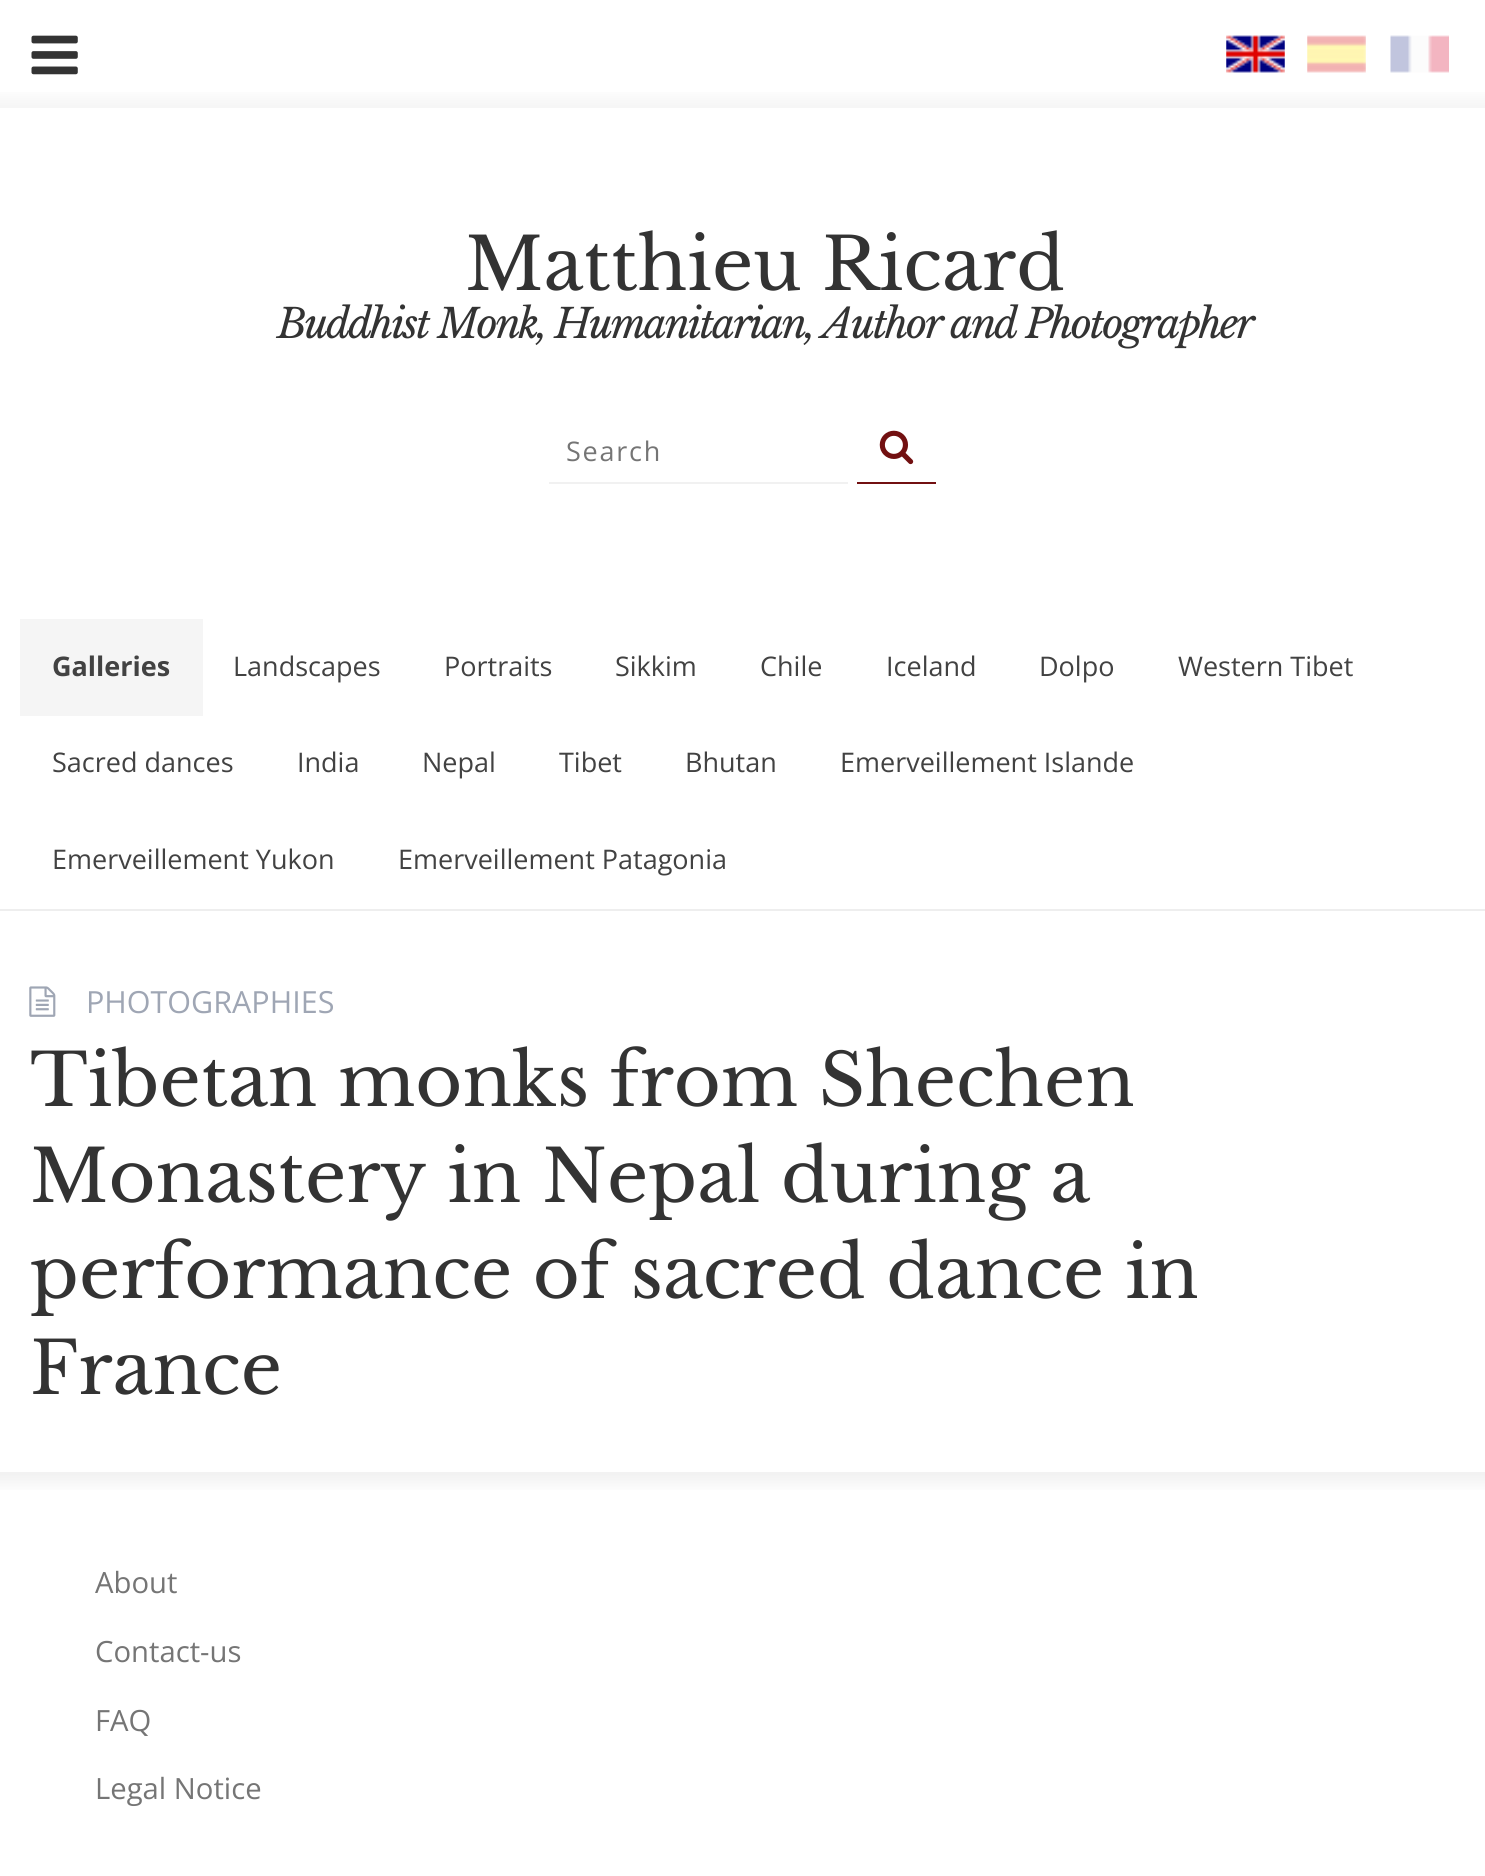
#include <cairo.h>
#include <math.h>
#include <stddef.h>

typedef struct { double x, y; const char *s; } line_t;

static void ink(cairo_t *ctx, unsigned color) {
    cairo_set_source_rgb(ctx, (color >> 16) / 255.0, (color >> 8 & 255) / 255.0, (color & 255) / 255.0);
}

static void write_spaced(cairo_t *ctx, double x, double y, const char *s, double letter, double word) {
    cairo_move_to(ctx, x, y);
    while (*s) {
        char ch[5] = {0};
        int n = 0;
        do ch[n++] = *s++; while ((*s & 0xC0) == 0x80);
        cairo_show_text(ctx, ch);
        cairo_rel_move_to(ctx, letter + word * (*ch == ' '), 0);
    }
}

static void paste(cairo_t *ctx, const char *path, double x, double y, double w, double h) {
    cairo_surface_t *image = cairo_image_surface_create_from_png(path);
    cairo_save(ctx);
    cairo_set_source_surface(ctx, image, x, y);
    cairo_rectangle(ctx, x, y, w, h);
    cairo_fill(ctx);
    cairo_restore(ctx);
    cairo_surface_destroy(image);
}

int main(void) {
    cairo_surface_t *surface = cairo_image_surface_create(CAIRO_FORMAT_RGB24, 1485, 1876);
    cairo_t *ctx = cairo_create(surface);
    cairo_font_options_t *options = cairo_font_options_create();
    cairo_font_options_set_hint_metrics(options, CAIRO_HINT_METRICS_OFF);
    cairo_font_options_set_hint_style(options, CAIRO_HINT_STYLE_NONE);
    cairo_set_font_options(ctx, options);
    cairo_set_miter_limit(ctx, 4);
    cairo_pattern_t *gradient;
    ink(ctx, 0xFFFFFF);
    cairo_paint(ctx);
    paste(ctx, "media/1.png", 1226, 35, 59, 38);
    paste(ctx, "media/2.png", 1307, 35, 59, 38);
    paste(ctx, "media/3.png", 1390, 35, 59, 38);
    gradient = cairo_pattern_create_linear(743, 108, 743, 86);
    cairo_pattern_add_color_stop_rgba(gradient, 0.1, 0.965, 0.965, 0.965, 1);
    cairo_pattern_add_color_stop_rgba(gradient, 1, 1, 1, 1, 1);
    cairo_set_source(ctx, gradient);
    cairo_pattern_destroy(gradient);
    cairo_rectangle(ctx, 0, 92, 1485, 16);
    cairo_fill(ctx);
    paste(ctx, "media/4.png", 31, 35, 47, 40);
    cairo_select_font_face(ctx, "Libre Baskerville", CAIRO_FONT_SLANT_NORMAL, CAIRO_FONT_WEIGHT_NORMAL);
    cairo_set_font_size(ctx, 72);
    ink(ctx, 0x333333);
    cairo_move_to(ctx, 465, 290);
    cairo_show_text(ctx, "Matthieu Ricard");
    cairo_select_font_face(ctx, "Libre Baskerville", CAIRO_FONT_SLANT_ITALIC, CAIRO_FONT_WEIGHT_NORMAL);
    cairo_set_font_size(ctx, 40.5);
    write_spaced(ctx, 277, 338, "Buddhist Monk, Humanitarian, Author and Photographer", -2.25, 0);
    ink(ctx, 0xF1F1F1);
    cairo_rectangle(ctx, 549, 482, 299, 2);
    cairo_fill(ctx);
    cairo_select_font_face(ctx, "Open Sans", CAIRO_FONT_SLANT_NORMAL, CAIRO_FONT_WEIGHT_NORMAL);
    cairo_set_font_size(ctx, 27);
    ink(ctx, 0x757575);
    write_spaced(ctx, 566, 461, "Search", 1.75, 0);
    ink(ctx, 0x721011);
    cairo_rectangle(ctx, 857, 482, 79, 2);
    cairo_fill(ctx);
    paste(ctx, "media/5.png", 879, 430, 35, 35);
    ink(ctx, 0xEEEEEE);
    cairo_rectangle(ctx, 0, 909, 1485, 2);
    cairo_fill(ctx);
    ink(ctx, 0xF5F5F5);
    cairo_rectangle(ctx, 20, 619, 183, 97);
    cairo_fill(ctx);
    cairo_select_font_face(ctx, "Open Sans", CAIRO_FONT_SLANT_NORMAL, CAIRO_FONT_WEIGHT_BOLD);
    ink(ctx, 0x424242);
    cairo_move_to(ctx, 52, 676);
    cairo_show_text(ctx, "Galleries");
    cairo_select_font_face(ctx, "Open Sans", CAIRO_FONT_SLANT_NORMAL, CAIRO_FONT_WEIGHT_NORMAL);
    {
        static const line_t items[] = {
            {233, 676, "Landscapes"},
            {444, 676, "Portraits"},
            {615, 676, "Sikkim"},
            {760, 676, "Chile"},
            {886, 676, "Iceland"},
            {1039, 676, "Dolpo"},
            {1178, 676, "Western Tibet"},
            {52, 772, "Sacred dances"},
            {297, 772, "India"},
            {422, 772, "Nepal"},
            {559, 772, "Tibet"},
            {685, 772, "Bhutan"},
            {840, 772, "Emerveillement Islande"},
            {52, 869, "Emerveillement Yukon"},
            {398, 869, "Emerveillement Patagonia"},
        };
        for (size_t i = 0; i < sizeof items / sizeof *items; i++) {
            cairo_move_to(ctx, items[i].x, items[i].y);
            cairo_show_text(ctx, items[i].s);
        }
    }
    paste(ctx, "media/6.png", 29, 986, 27, 31);
    cairo_set_font_size(ctx, 30.5);
    ink(ctx, 0x9FA6B4);
    cairo_move_to(ctx, 86, 1013);
    cairo_show_text(ctx, "PHOTOGRAPHIES");
    cairo_select_font_face(ctx, "Libre Baskerville", CAIRO_FONT_SLANT_NORMAL, CAIRO_FONT_WEIGHT_NORMAL);
    cairo_set_font_size(ctx, 72);
    ink(ctx, 0x333333);
    {
        static const line_t items[] = {
            {30, 1106, "Tibetan monks from Shechen"},
            {30, 1202, "Monastery in Nepal during a"},
            {30, 1298, "performance of sacred dance in"},
            {30, 1394, "France"},
        };
        for (size_t i = 0; i < sizeof items / sizeof *items; i++) {
            cairo_move_to(ctx, items[i].x, items[i].y);
            cairo_show_text(ctx, items[i].s);
        }
    }
    gradient = cairo_pattern_create_linear(743, 1472, 743, 1494);
    cairo_pattern_add_color_stop_rgba(gradient, 0.1, 0.949, 0.949, 0.949, 1);
    cairo_pattern_add_color_stop_rgba(gradient, 1, 1, 1, 1, 1);
    cairo_set_source(ctx, gradient);
    cairo_pattern_destroy(gradient);
    cairo_rectangle(ctx, 0, 1472, 1485, 18);
    cairo_fill(ctx);
    cairo_select_font_face(ctx, "Open Sans", CAIRO_FONT_SLANT_NORMAL, CAIRO_FONT_WEIGHT_NORMAL);
    cairo_set_font_size(ctx, 29.25);
    ink(ctx, 0x757575);
    {
        static const line_t items[] = {
            {95, 1593, "About"},
            {95, 1662, "Contact-us"},
            {95, 1731, "FAQ"},
            {95, 1799, "Legal Notice"},
        };
        for (size_t i = 0; i < sizeof items / sizeof *items; i++) {
            cairo_move_to(ctx, items[i].x, items[i].y);
            cairo_show_text(ctx, items[i].s);
        }
    }
    cairo_surface_write_to_png(surface, "image.png");
    cairo_font_options_destroy(options);
    cairo_destroy(ctx);
    cairo_surface_destroy(surface);
    return 0;
}
